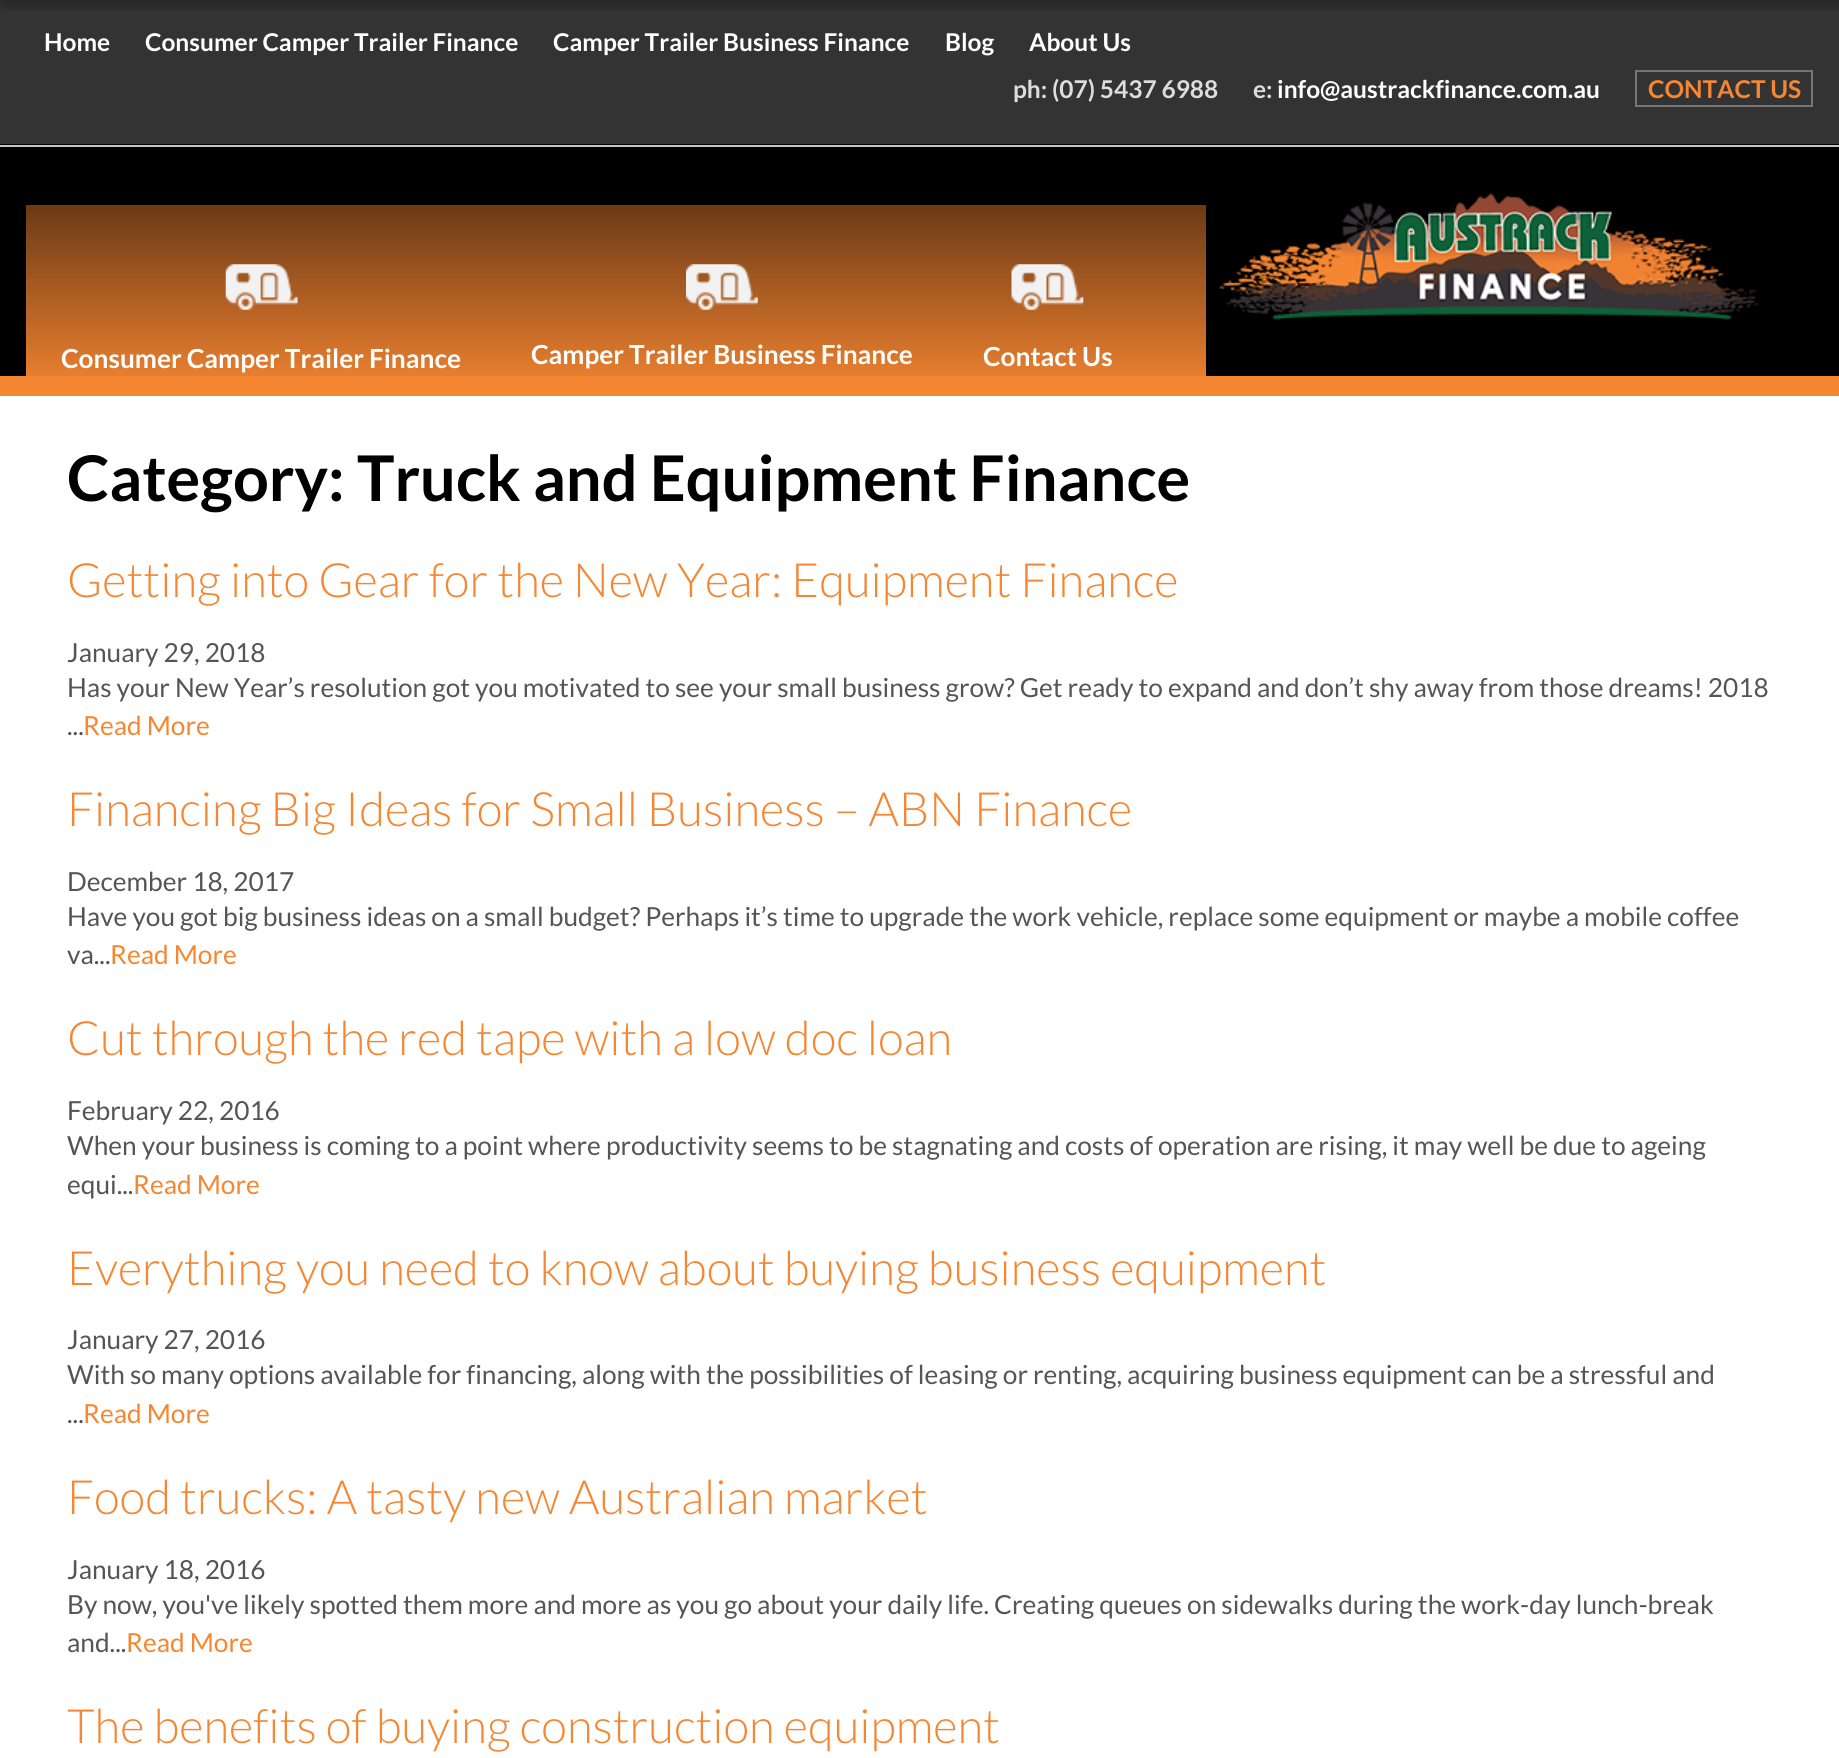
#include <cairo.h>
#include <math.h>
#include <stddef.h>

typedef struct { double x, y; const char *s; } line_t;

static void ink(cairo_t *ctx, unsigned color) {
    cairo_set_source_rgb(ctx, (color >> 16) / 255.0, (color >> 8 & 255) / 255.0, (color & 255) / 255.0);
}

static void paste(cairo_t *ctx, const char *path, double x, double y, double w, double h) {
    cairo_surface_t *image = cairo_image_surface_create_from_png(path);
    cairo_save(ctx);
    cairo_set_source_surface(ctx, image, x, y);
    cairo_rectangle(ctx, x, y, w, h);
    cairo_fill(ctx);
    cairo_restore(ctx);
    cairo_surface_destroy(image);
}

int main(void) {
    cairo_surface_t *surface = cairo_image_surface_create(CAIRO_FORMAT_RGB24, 1839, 1758);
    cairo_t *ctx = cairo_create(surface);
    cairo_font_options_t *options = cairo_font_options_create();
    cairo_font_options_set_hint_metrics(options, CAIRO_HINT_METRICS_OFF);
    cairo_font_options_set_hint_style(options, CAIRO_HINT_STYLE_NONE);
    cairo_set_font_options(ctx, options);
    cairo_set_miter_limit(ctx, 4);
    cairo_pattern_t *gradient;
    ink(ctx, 0xFFFFFF);
    cairo_paint(ctx);
    ink(ctx, 0x333333);
    cairo_rectangle(ctx, 0, 0, 1839, 144);
    cairo_fill(ctx);
    cairo_select_font_face(ctx, "Lato", CAIRO_FONT_SLANT_NORMAL, CAIRO_FONT_WEIGHT_BOLD);
    cairo_set_font_size(ctx, 24.5);
    ink(ctx, 0xFFFFFF);
    {
        static const line_t items[] = {
            {44, 51, "Home"},
            {145, 51, "Consumer Camper Trailer Finance"},
            {553, 51, "Camper Trailer Business Finance"},
            {945, 51, "Blog"},
            {1029, 51, "About Us"},
        };
        for (size_t i = 0; i < sizeof items / sizeof *items; i++) {
            cairo_move_to(ctx, items[i].x, items[i].y);
            cairo_show_text(ctx, items[i].s);
        }
    }
    ink(ctx, 0xDDDDDD);
    cairo_move_to(ctx, 1013, 98);
    cairo_show_text(ctx, "ph: (07) 5437 6988");
    cairo_move_to(ctx, 1253, 98);
    cairo_show_text(ctx, "e:");
    ink(ctx, 0xFFFFFF);
    cairo_move_to(ctx, 1277, 98);
    cairo_show_text(ctx, "info@austrackfinance.com.au");
    cairo_rectangle(ctx, 1636, 71, 176, 35);
    ink(ctx, 0x757575);
    cairo_stroke(ctx);
    ink(ctx, 0xF58632);
    cairo_move_to(ctx, 1648, 98);
    cairo_show_text(ctx, "CONTACT US");
    ink(ctx, 0x000000);
    cairo_rectangle(ctx, 0, 144, 1839, 232);
    cairo_fill(ctx);
    ink(ctx, 0xC4C4C4);
    cairo_rectangle(ctx, 0, 145, 1839, 2);
    cairo_fill(ctx);
    paste(ctx, "media/1.png", 1219, 192, 541, 128);
    gradient = cairo_pattern_create_linear(616, 205, 616, 396);
    cairo_pattern_add_color_stop_rgba(gradient, 0.01, 0.961, 0.525, 0.196, 0.44);
    cairo_pattern_add_color_stop_rgba(gradient, 1, 0.961, 0.525, 0.196, 1);
    cairo_set_source(ctx, gradient);
    cairo_pattern_destroy(gradient);
    cairo_rectangle(ctx, 26, 205, 1180, 171);
    cairo_fill(ctx);
    paste(ctx, "media/2.png", 225, 264, 73, 46);
    cairo_set_font_size(ctx, 26.25);
    ink(ctx, 0xFFFFFF);
    cairo_move_to(ctx, 61, 368);
    cairo_show_text(ctx, "Consumer Camper Trailer Finance");
    paste(ctx, "media/3.png", 686, 264, 72, 46);
    cairo_move_to(ctx, 531, 364);
    cairo_show_text(ctx, "Camper Trailer Business Finance");
    paste(ctx, "media/4.png", 1011, 264, 73, 46);
    cairo_move_to(ctx, 983, 366);
    cairo_show_text(ctx, "Contact Us");
    ink(ctx, 0xF58632);
    cairo_rectangle(ctx, 0, 376, 1839, 20);
    cairo_fill(ctx);
    paste(ctx, "media/5.png", 0, 0, 1839, 11);
    cairo_set_font_size(ctx, 63);
    ink(ctx, 0x000000);
    cairo_move_to(ctx, 67, 501);
    cairo_show_text(ctx, "Category: Truck and Equipment Finance");
    cairo_select_font_face(ctx, "Lato Light", CAIRO_FONT_SLANT_NORMAL, CAIRO_FONT_WEIGHT_NORMAL);
    cairo_set_font_size(ctx, 47.25);
    ink(ctx, 0xF58632);
    cairo_move_to(ctx, 67, 597);
    cairo_show_text(ctx, "Getting into Gear for the New Year: Equipment Finance");
    cairo_select_font_face(ctx, "Lato", CAIRO_FONT_SLANT_NORMAL, CAIRO_FONT_WEIGHT_NORMAL);
    cairo_set_font_size(ctx, 26.25);
    ink(ctx, 0x555555);
    {
        static const line_t items[] = {
            {67, 662, "January 29, 2018"},
            {67, 697, "Has your New Year’s resolution got you motivated to see your small business grow? Get ready to expand and don’t shy away from those dreams! 2018"},
            {67, 735, "..."},
        };
        for (size_t i = 0; i < sizeof items / sizeof *items; i++) {
            cairo_move_to(ctx, items[i].x, items[i].y);
            cairo_show_text(ctx, items[i].s);
        }
    }
    ink(ctx, 0xF58632);
    cairo_move_to(ctx, 83, 735);
    cairo_show_text(ctx, "Read More");
    cairo_select_font_face(ctx, "Lato Light", CAIRO_FONT_SLANT_NORMAL, CAIRO_FONT_WEIGHT_NORMAL);
    cairo_set_font_size(ctx, 47.25);
    cairo_move_to(ctx, 67, 826);
    cairo_show_text(ctx, "Financing Big Ideas for Small Business – ABN Finance");
    cairo_select_font_face(ctx, "Lato", CAIRO_FONT_SLANT_NORMAL, CAIRO_FONT_WEIGHT_NORMAL);
    cairo_set_font_size(ctx, 26.25);
    ink(ctx, 0x555555);
    {
        static const line_t items[] = {
            {67, 891, "December 18, 2017"},
            {67, 926, "Have you got big business ideas on a small budget? Perhaps it’s time to upgrade the work vehicle, replace some equipment or maybe a mobile coffee"},
            {67, 964, "va..."},
        };
        for (size_t i = 0; i < sizeof items / sizeof *items; i++) {
            cairo_move_to(ctx, items[i].x, items[i].y);
            cairo_show_text(ctx, items[i].s);
        }
    }
    ink(ctx, 0xF58632);
    cairo_move_to(ctx, 110, 964);
    cairo_show_text(ctx, "Read More");
    cairo_select_font_face(ctx, "Lato Light", CAIRO_FONT_SLANT_NORMAL, CAIRO_FONT_WEIGHT_NORMAL);
    cairo_set_font_size(ctx, 47.25);
    cairo_move_to(ctx, 67, 1055);
    cairo_show_text(ctx, "Cut through the red tape with a low doc loan");
    cairo_select_font_face(ctx, "Lato", CAIRO_FONT_SLANT_NORMAL, CAIRO_FONT_WEIGHT_NORMAL);
    cairo_set_font_size(ctx, 26.25);
    ink(ctx, 0x555555);
    {
        static const line_t items[] = {
            {67, 1120, "February 22, 2016"},
            {67, 1155, "When your business is coming to a point where productivity seems to be stagnating and costs of operation are rising, it may well be due to ageing"},
            {67, 1194, "equi..."},
        };
        for (size_t i = 0; i < sizeof items / sizeof *items; i++) {
            cairo_move_to(ctx, items[i].x, items[i].y);
            cairo_show_text(ctx, items[i].s);
        }
    }
    ink(ctx, 0xF58632);
    cairo_move_to(ctx, 133, 1194);
    cairo_show_text(ctx, "Read More");
    cairo_select_font_face(ctx, "Lato Light", CAIRO_FONT_SLANT_NORMAL, CAIRO_FONT_WEIGHT_NORMAL);
    cairo_set_font_size(ctx, 47.25);
    cairo_move_to(ctx, 67, 1285);
    cairo_show_text(ctx, "Everything you need to know about buying business equipment");
    cairo_select_font_face(ctx, "Lato", CAIRO_FONT_SLANT_NORMAL, CAIRO_FONT_WEIGHT_NORMAL);
    cairo_set_font_size(ctx, 26.25);
    ink(ctx, 0x555555);
    {
        static const line_t items[] = {
            {67, 1349, "January 27, 2016"},
            {67, 1384, "With so many options available for financing, along with the possibilities of leasing or renting, acquiring business equipment can be a stressful and"},
            {67, 1423, "..."},
        };
        for (size_t i = 0; i < sizeof items / sizeof *items; i++) {
            cairo_move_to(ctx, items[i].x, items[i].y);
            cairo_show_text(ctx, items[i].s);
        }
    }
    ink(ctx, 0xF58632);
    cairo_move_to(ctx, 83, 1423);
    cairo_show_text(ctx, "Read More");
    cairo_select_font_face(ctx, "Lato Light", CAIRO_FONT_SLANT_NORMAL, CAIRO_FONT_WEIGHT_NORMAL);
    cairo_set_font_size(ctx, 47.25);
    cairo_move_to(ctx, 67, 1514);
    cairo_show_text(ctx, "Food trucks: A tasty new Australian market");
    cairo_select_font_face(ctx, "Lato", CAIRO_FONT_SLANT_NORMAL, CAIRO_FONT_WEIGHT_NORMAL);
    cairo_set_font_size(ctx, 26.25);
    ink(ctx, 0x555555);
    {
        static const line_t items[] = {
            {67, 1579, "January 18, 2016"},
            {67, 1614, "By now, you've likely spotted them more and more as you go about your daily life. Creating queues on sidewalks during the work-day lunch-break"},
            {67, 1652, "and..."},
        };
        for (size_t i = 0; i < sizeof items / sizeof *items; i++) {
            cairo_move_to(ctx, items[i].x, items[i].y);
            cairo_show_text(ctx, items[i].s);
        }
    }
    ink(ctx, 0xF58632);
    cairo_move_to(ctx, 126, 1652);
    cairo_show_text(ctx, "Read More");
    cairo_select_font_face(ctx, "Lato Light", CAIRO_FONT_SLANT_NORMAL, CAIRO_FONT_WEIGHT_NORMAL);
    cairo_set_font_size(ctx, 47.25);
    cairo_move_to(ctx, 67, 1743);
    cairo_show_text(ctx, "The benefits of buying construction equipment");
    cairo_surface_write_to_png(surface, "image.png");
    cairo_font_options_destroy(options);
    cairo_destroy(ctx);
    cairo_surface_destroy(surface);
    return 0;
}
